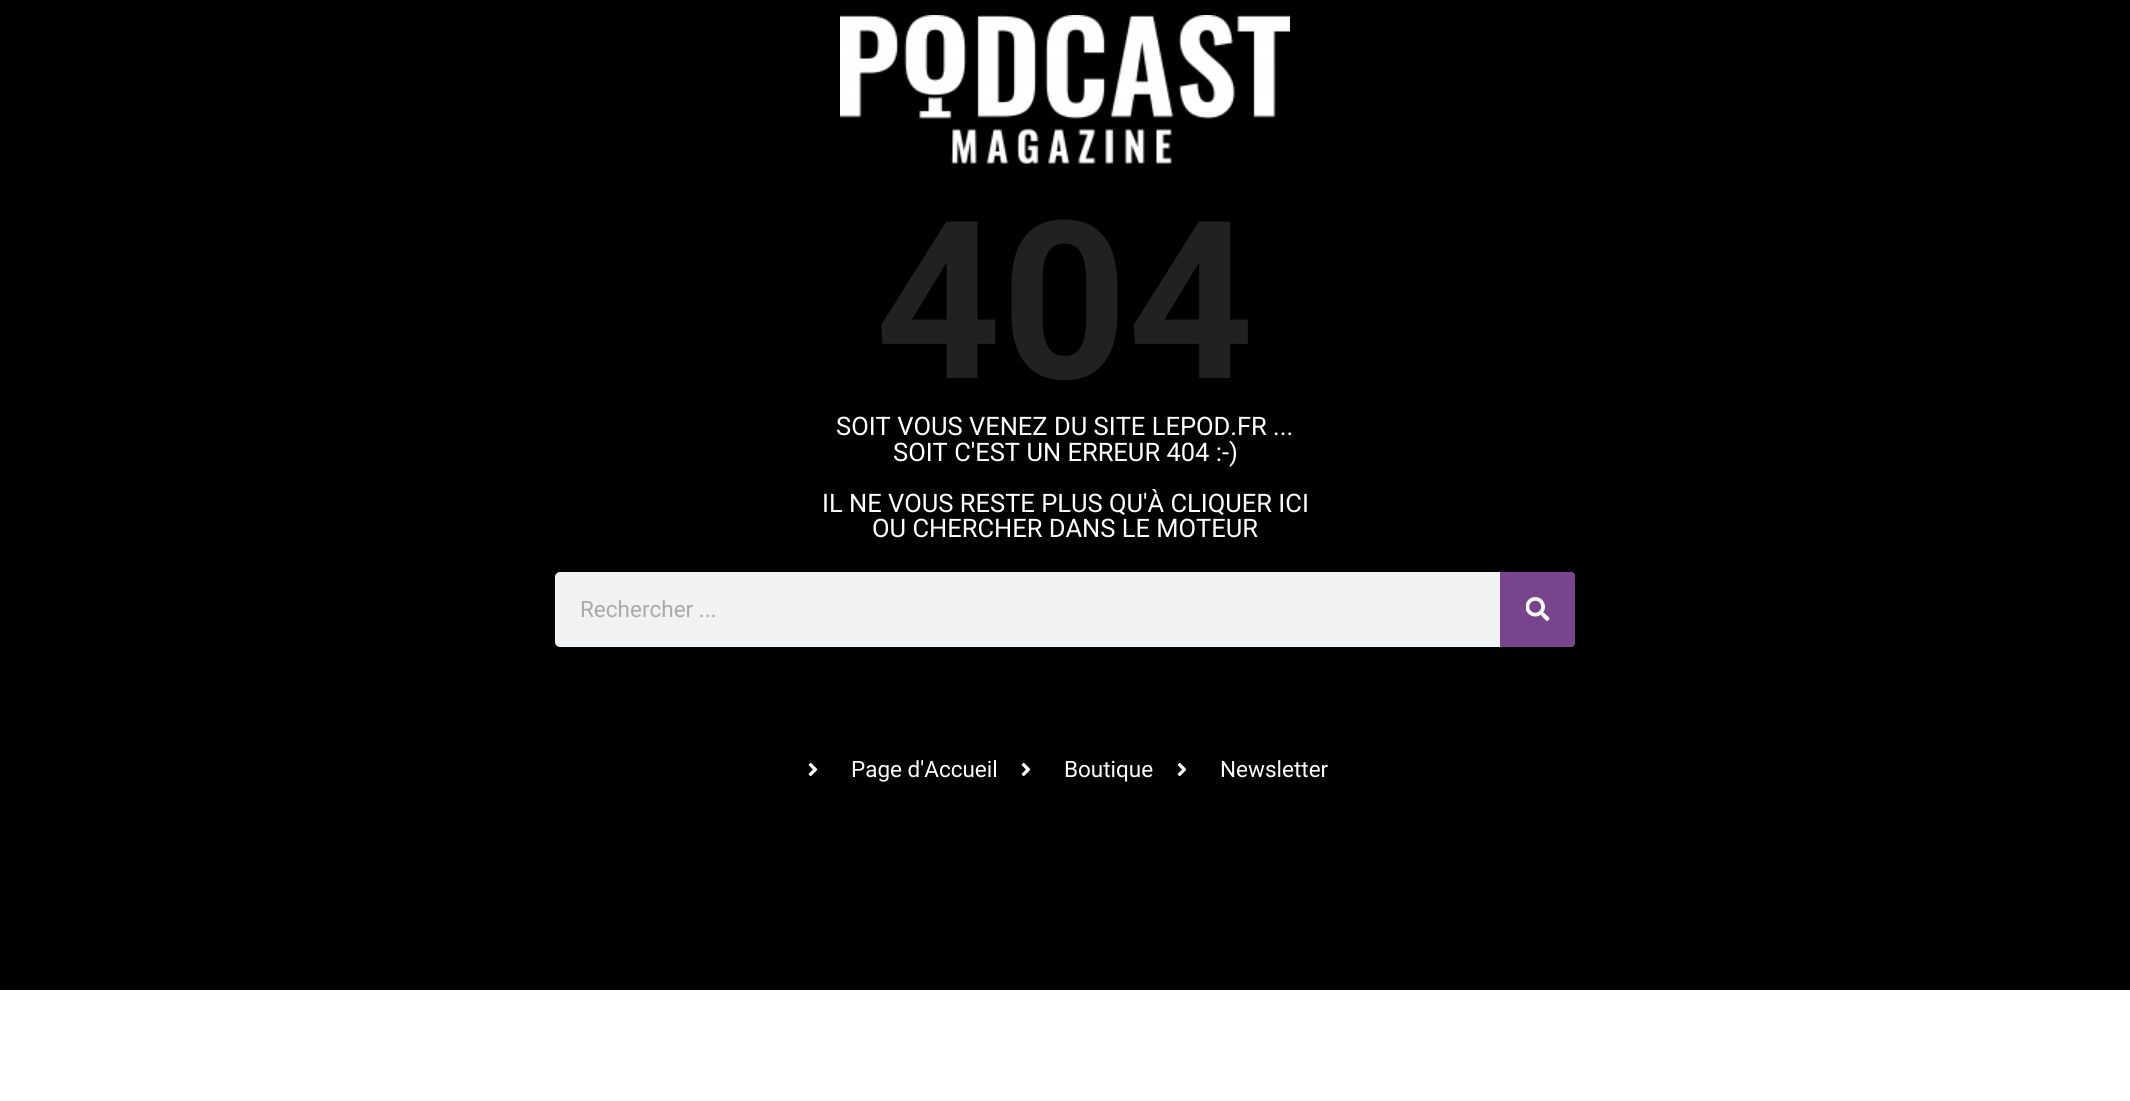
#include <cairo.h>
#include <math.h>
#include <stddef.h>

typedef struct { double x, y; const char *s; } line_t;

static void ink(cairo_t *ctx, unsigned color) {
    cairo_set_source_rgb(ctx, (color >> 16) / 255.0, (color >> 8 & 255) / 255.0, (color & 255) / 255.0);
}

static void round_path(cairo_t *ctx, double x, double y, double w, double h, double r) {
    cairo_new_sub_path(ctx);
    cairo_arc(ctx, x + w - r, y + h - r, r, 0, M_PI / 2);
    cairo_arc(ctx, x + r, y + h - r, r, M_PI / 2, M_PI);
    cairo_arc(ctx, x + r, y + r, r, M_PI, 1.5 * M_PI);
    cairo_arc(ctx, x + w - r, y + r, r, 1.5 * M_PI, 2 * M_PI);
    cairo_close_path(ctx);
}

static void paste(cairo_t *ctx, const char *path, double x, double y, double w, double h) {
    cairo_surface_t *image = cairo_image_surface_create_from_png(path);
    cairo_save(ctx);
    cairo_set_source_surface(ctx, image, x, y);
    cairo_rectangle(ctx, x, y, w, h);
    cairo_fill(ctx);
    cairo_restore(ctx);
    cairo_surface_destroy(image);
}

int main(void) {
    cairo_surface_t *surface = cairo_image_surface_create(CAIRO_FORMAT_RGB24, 2130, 1101);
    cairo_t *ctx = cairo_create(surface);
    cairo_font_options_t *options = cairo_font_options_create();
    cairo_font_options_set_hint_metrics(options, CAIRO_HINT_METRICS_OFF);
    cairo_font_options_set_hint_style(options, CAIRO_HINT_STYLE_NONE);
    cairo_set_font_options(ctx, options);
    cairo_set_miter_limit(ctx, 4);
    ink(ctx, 0xFFFFFF);
    cairo_paint(ctx);
    ink(ctx, 0x000000);
    cairo_rectangle(ctx, 0, 0, 2130, 990);
    cairo_fill(ctx);
    paste(ctx, "media/1.png", 840, 15, 450, 149);
    cairo_select_font_face(ctx, "Roboto", CAIRO_FONT_SLANT_NORMAL, CAIRO_FONT_WEIGHT_BOLD);
    cairo_set_font_size(ctx, 220);
    ink(ctx, 0x212121);
    cairo_move_to(ctx, 875, 378);
    cairo_show_text(ctx, "404");
    cairo_select_font_face(ctx, "Roboto", CAIRO_FONT_SLANT_NORMAL, CAIRO_FONT_WEIGHT_NORMAL);
    cairo_set_font_size(ctx, 25.5);
    ink(ctx, 0xFFFFFF);
    {
        static const line_t items[] = {
            {836, 435, "SOIT VOUS VENEZ DU SITE LEPOD.FR ..."},
            {893, 461, "SOIT C'EST UN ERREUR 404 :-)"},
            {822, 512, "IL NE VOUS RESTE PLUS QU'À CLIQUER ICI"},
            {872, 537, "OU CHERCHER DANS LE MOTEUR"},
        };
        for (size_t i = 0; i < sizeof items / sizeof *items; i++) {
            cairo_move_to(ctx, items[i].x, items[i].y);
            cairo_show_text(ctx, items[i].s);
        }
    }
    ink(ctx, 0xF1F2F3);
    round_path(ctx, 555, 572, 1020, 75, 5);
    cairo_fill(ctx);
    cairo_set_font_size(ctx, 22.5);
    ink(ctx, 0xAAAAAA);
    cairo_move_to(ctx, 580, 617);
    cairo_show_text(ctx, "Rechercher ...");
    ink(ctx, 0x78458D);
    cairo_new_path(ctx);
    cairo_move_to(ctx, 1500, 572);
    cairo_line_to(ctx, 1570, 572);
    cairo_curve_to(ctx, 1573, 572, 1575, 574, 1575, 577);
    cairo_line_to(ctx, 1575, 642);
    cairo_curve_to(ctx, 1575, 645, 1573, 647, 1570, 647);
    cairo_line_to(ctx, 1500, 647);
    cairo_close_path(ctx);
    cairo_fill(ctx);
    paste(ctx, "media/2.png", 1526, 597, 24, 24);
    paste(ctx, "media/3.png", 808, 762, 10, 14);
    ink(ctx, 0xFFFFFF);
    cairo_move_to(ctx, 851, 777);
    cairo_show_text(ctx, "Page d'Accueil");
    paste(ctx, "media/3.png", 1021, 762, 10, 14);
    cairo_move_to(ctx, 1064, 777);
    cairo_show_text(ctx, "Boutique");
    paste(ctx, "media/3.png", 1177, 762, 10, 14);
    cairo_move_to(ctx, 1220, 777);
    cairo_show_text(ctx, "Newsletter");
    cairo_surface_write_to_png(surface, "image.png");
    cairo_font_options_destroy(options);
    cairo_destroy(ctx);
    cairo_surface_destroy(surface);
    return 0;
}
